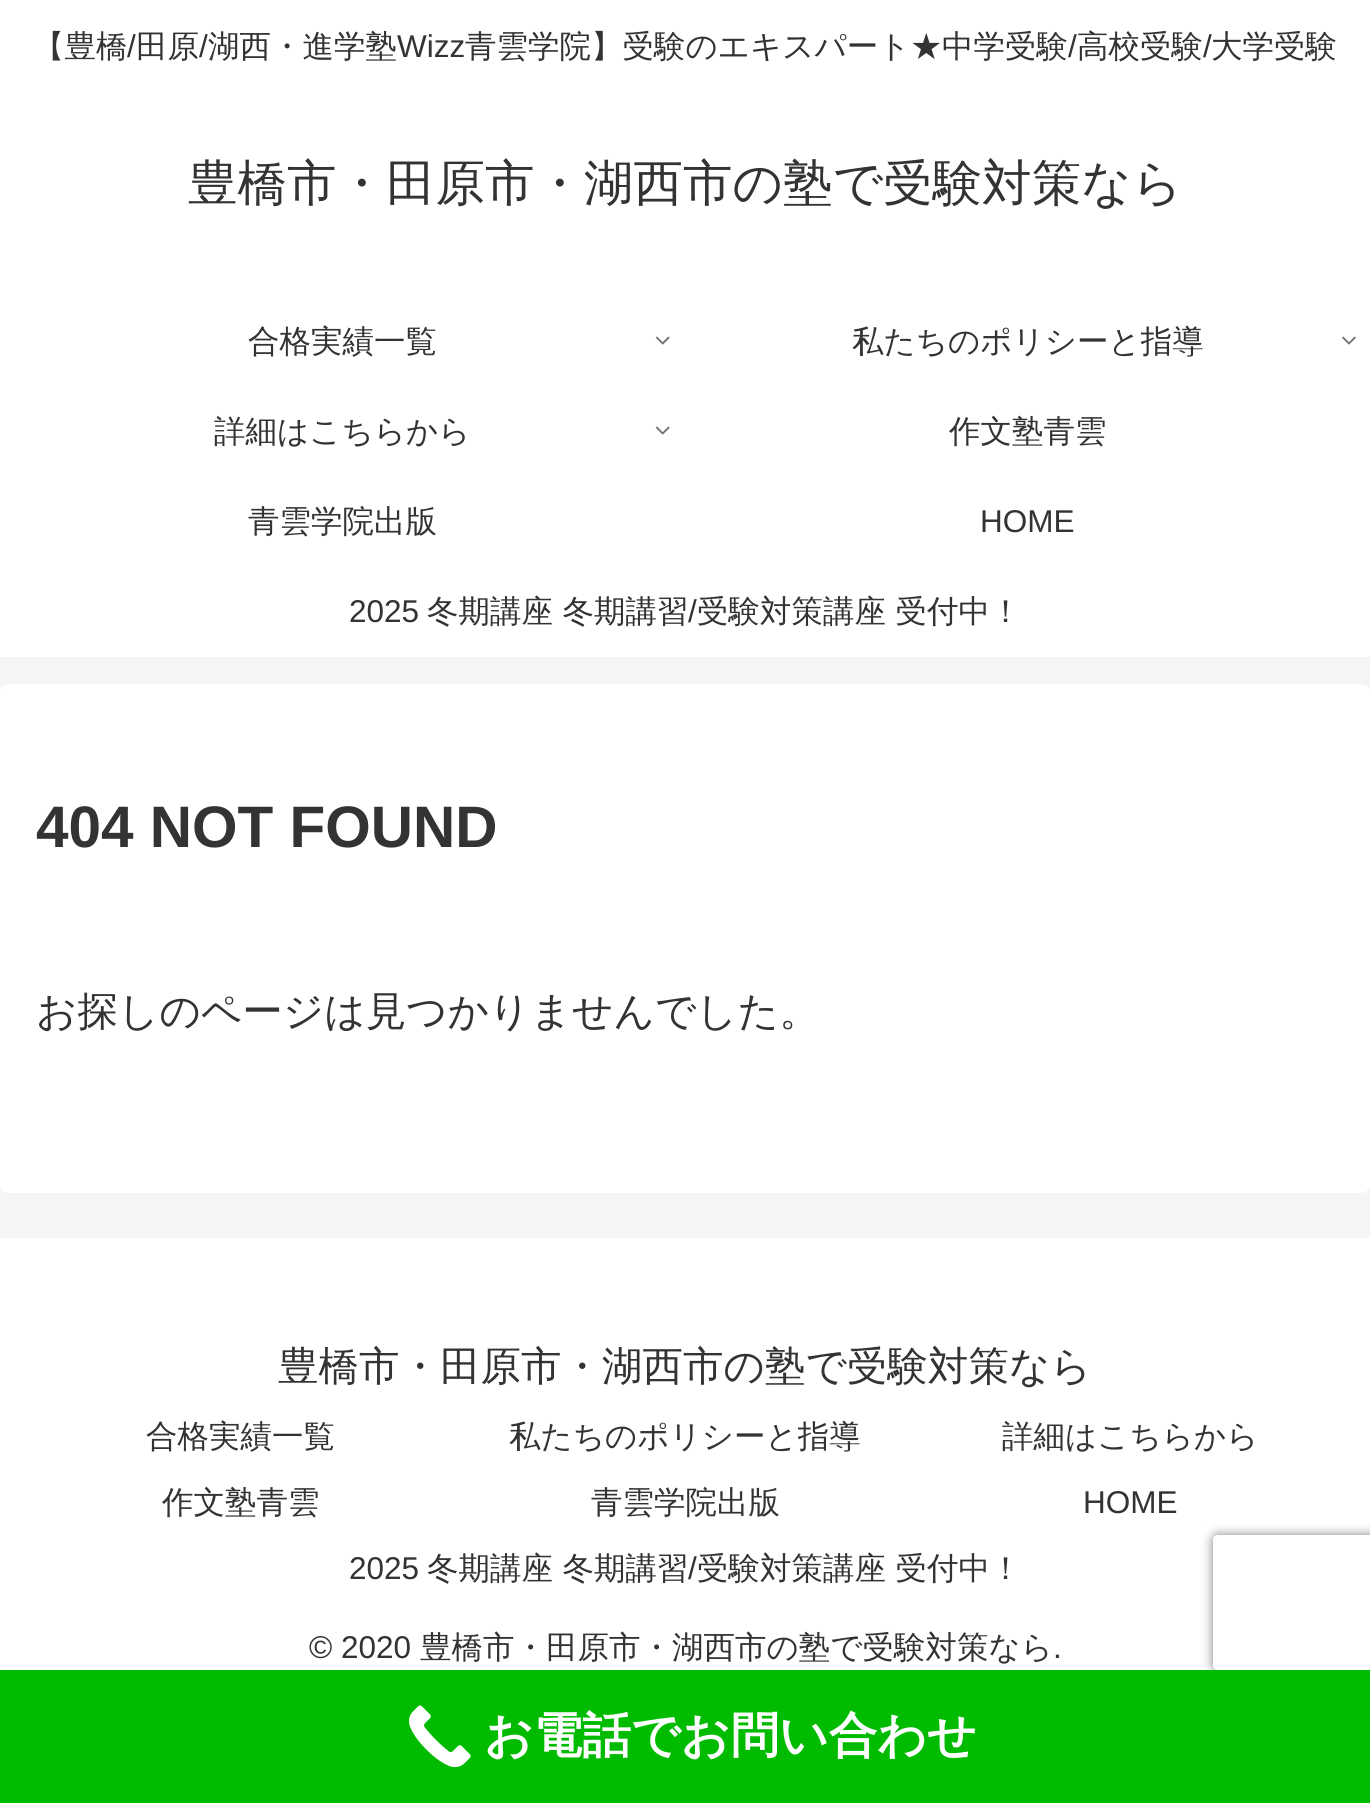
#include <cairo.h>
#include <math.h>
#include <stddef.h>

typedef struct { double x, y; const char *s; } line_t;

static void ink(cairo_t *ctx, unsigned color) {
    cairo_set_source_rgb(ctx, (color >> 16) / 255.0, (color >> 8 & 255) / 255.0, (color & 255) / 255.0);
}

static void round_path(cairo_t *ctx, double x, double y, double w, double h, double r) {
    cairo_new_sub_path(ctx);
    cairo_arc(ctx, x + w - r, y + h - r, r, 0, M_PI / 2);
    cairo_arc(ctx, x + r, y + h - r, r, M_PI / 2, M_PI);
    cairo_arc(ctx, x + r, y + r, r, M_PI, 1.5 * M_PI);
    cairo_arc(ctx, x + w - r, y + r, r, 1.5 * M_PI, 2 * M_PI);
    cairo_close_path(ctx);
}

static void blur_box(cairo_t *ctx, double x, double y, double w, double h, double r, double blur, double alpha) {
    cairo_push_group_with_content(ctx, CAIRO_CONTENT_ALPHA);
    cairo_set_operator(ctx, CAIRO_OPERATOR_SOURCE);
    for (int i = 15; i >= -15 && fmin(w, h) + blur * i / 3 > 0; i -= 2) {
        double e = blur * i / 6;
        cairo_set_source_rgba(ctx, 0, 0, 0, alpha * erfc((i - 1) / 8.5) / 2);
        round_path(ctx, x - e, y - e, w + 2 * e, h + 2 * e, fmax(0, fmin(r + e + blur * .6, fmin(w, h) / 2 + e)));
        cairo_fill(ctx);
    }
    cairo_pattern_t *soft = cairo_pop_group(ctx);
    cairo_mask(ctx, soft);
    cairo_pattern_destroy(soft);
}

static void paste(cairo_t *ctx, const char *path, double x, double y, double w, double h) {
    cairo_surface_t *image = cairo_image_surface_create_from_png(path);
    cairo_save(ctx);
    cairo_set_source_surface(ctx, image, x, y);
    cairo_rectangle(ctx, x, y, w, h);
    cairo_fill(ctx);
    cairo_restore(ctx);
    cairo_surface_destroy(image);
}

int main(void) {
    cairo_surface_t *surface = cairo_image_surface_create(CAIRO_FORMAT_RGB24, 1370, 1803);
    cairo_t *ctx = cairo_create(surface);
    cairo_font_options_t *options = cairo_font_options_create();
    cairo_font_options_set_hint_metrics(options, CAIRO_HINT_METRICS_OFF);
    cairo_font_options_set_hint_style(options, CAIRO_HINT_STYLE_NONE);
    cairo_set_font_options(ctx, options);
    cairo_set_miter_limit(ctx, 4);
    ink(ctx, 0xF4F5F7);
    cairo_paint(ctx);
    ink(ctx, 0xFFFFFF);
    cairo_rectangle(ctx, 0, 0, 1370, 657);
    cairo_fill(ctx);
    cairo_select_font_face(ctx, "WenQuanYi Zen Hei Medium", CAIRO_FONT_SLANT_NORMAL, CAIRO_FONT_WEIGHT_NORMAL);
    cairo_set_font_size(ctx, 31.5);
    ink(ctx, 0x333333);
    cairo_move_to(ctx, 33, 57);
    cairo_show_text(ctx, "【豊橋");
    cairo_select_font_face(ctx, "Liberation Sans", CAIRO_FONT_SLANT_NORMAL, CAIRO_FONT_WEIGHT_NORMAL);
    cairo_move_to(ctx, 127, 57);
    cairo_show_text(ctx, "/");
    cairo_select_font_face(ctx, "WenQuanYi Zen Hei Medium", CAIRO_FONT_SLANT_NORMAL, CAIRO_FONT_WEIGHT_NORMAL);
    cairo_move_to(ctx, 136, 57);
    cairo_show_text(ctx, "田原");
    cairo_select_font_face(ctx, "Liberation Sans", CAIRO_FONT_SLANT_NORMAL, CAIRO_FONT_WEIGHT_NORMAL);
    cairo_move_to(ctx, 199, 57);
    cairo_show_text(ctx, "/");
    cairo_select_font_face(ctx, "WenQuanYi Zen Hei Medium", CAIRO_FONT_SLANT_NORMAL, CAIRO_FONT_WEIGHT_NORMAL);
    cairo_move_to(ctx, 208, 57);
    cairo_show_text(ctx, "湖西・進学塾");
    cairo_select_font_face(ctx, "Liberation Sans", CAIRO_FONT_SLANT_NORMAL, CAIRO_FONT_WEIGHT_NORMAL);
    cairo_move_to(ctx, 397, 57);
    cairo_show_text(ctx, "Wizz");
    cairo_select_font_face(ctx, "WenQuanYi Zen Hei Medium", CAIRO_FONT_SLANT_NORMAL, CAIRO_FONT_WEIGHT_NORMAL);
    cairo_move_to(ctx, 465, 57);
    cairo_show_text(ctx, "青雲学院】受験のエキスパート★中学受験");
    cairo_select_font_face(ctx, "Liberation Sans", CAIRO_FONT_SLANT_NORMAL, CAIRO_FONT_WEIGHT_NORMAL);
    cairo_move_to(ctx, 1068, 57);
    cairo_show_text(ctx, "/");
    cairo_select_font_face(ctx, "WenQuanYi Zen Hei Medium", CAIRO_FONT_SLANT_NORMAL, CAIRO_FONT_WEIGHT_NORMAL);
    cairo_move_to(ctx, 1077, 57);
    cairo_show_text(ctx, "高校受験");
    cairo_select_font_face(ctx, "Liberation Sans", CAIRO_FONT_SLANT_NORMAL, CAIRO_FONT_WEIGHT_NORMAL);
    cairo_move_to(ctx, 1203, 57);
    cairo_show_text(ctx, "/");
    cairo_select_font_face(ctx, "WenQuanYi Zen Hei Medium", CAIRO_FONT_SLANT_NORMAL, CAIRO_FONT_WEIGHT_NORMAL);
    cairo_move_to(ctx, 1211, 57);
    cairo_show_text(ctx, "大学受験");
    cairo_set_font_size(ctx, 49.5);
    cairo_move_to(ctx, 188, 200);
    cairo_show_text(ctx, "豊橋市・田原市・湖西市の塾で受験対策なら");
    cairo_set_font_size(ctx, 31.5);
    cairo_move_to(ctx, 248, 352);
    cairo_show_text(ctx, "合格実績一覧");
    paste(ctx, "media/1.png", 655, 336, 15, 9);
    cairo_move_to(ctx, 852, 352);
    cairo_show_text(ctx, "私たちのポリシーと指導");
    paste(ctx, "media/2.png", 1342, 336, 14, 9);
    cairo_move_to(ctx, 214, 442);
    cairo_show_text(ctx, "詳細はこちらから");
    paste(ctx, "media/1.png", 655, 426, 15, 9);
    cairo_move_to(ctx, 949, 442);
    cairo_show_text(ctx, "作文塾青雲");
    cairo_move_to(ctx, 248, 532);
    cairo_show_text(ctx, "青雲学院出版");
    cairo_select_font_face(ctx, "Liberation Sans", CAIRO_FONT_SLANT_NORMAL, CAIRO_FONT_WEIGHT_NORMAL);
    cairo_move_to(ctx, 980, 532);
    cairo_show_text(ctx, "HOME");
    cairo_move_to(ctx, 349, 622);
    cairo_show_text(ctx, "2025");
    cairo_select_font_face(ctx, "WenQuanYi Zen Hei Medium", CAIRO_FONT_SLANT_NORMAL, CAIRO_FONT_WEIGHT_NORMAL);
    cairo_move_to(ctx, 427, 622);
    cairo_show_text(ctx, "冬期講座 冬期講習");
    cairo_select_font_face(ctx, "Liberation Sans", CAIRO_FONT_SLANT_NORMAL, CAIRO_FONT_WEIGHT_NORMAL);
    cairo_move_to(ctx, 688, 622);
    cairo_show_text(ctx, "/");
    cairo_select_font_face(ctx, "WenQuanYi Zen Hei Medium", CAIRO_FONT_SLANT_NORMAL, CAIRO_FONT_WEIGHT_NORMAL);
    cairo_move_to(ctx, 697, 622);
    cairo_show_text(ctx, "受験対策講座 受付中！");
    ink(ctx, 0xFFFFFF);
    round_path(ctx, 0, 684, 1370, 509, 9);
    cairo_fill(ctx);
    cairo_select_font_face(ctx, "Liberation Sans", CAIRO_FONT_SLANT_NORMAL, CAIRO_FONT_WEIGHT_BOLD);
    cairo_set_font_size(ctx, 58.5);
    ink(ctx, 0x333333);
    cairo_move_to(ctx, 36, 847);
    cairo_show_text(ctx, "404 NOT FOUND");
    cairo_select_font_face(ctx, "WenQuanYi Zen Hei Medium", CAIRO_FONT_SLANT_NORMAL, CAIRO_FONT_WEIGHT_NORMAL);
    cairo_set_font_size(ctx, 40.5);
    cairo_move_to(ctx, 36, 1025);
    cairo_show_text(ctx, "お探しのページは見つかりませんでした。");
    ink(ctx, 0xFFFFFF);
    cairo_rectangle(ctx, 0, 1238, 1370, 432);
    cairo_fill(ctx);
    ink(ctx, 0x333333);
    cairo_move_to(ctx, 278, 1380);
    cairo_show_text(ctx, "豊橋市・田原市・湖西市の塾で受験対策なら");
    cairo_set_font_size(ctx, 31.5);
    {
        static const line_t items[] = {
            {146, 1447, "合格実績一覧"},
            {509, 1447, "私たちのポリシーと指導"},
            {1002, 1447, "詳細はこちらから"},
            {162, 1513, "作文塾青雲"},
            {591, 1513, "青雲学院出版"},
        };
        for (size_t i = 0; i < sizeof items / sizeof *items; i++) {
            cairo_move_to(ctx, items[i].x, items[i].y);
            cairo_show_text(ctx, items[i].s);
        }
    }
    cairo_select_font_face(ctx, "Liberation Sans", CAIRO_FONT_SLANT_NORMAL, CAIRO_FONT_WEIGHT_NORMAL);
    cairo_move_to(ctx, 1083, 1513);
    cairo_show_text(ctx, "HOME");
    cairo_move_to(ctx, 349, 1579);
    cairo_show_text(ctx, "2025");
    cairo_select_font_face(ctx, "WenQuanYi Zen Hei Medium", CAIRO_FONT_SLANT_NORMAL, CAIRO_FONT_WEIGHT_NORMAL);
    cairo_move_to(ctx, 427, 1579);
    cairo_show_text(ctx, "冬期講座 冬期講習");
    cairo_select_font_face(ctx, "Liberation Sans", CAIRO_FONT_SLANT_NORMAL, CAIRO_FONT_WEIGHT_NORMAL);
    cairo_move_to(ctx, 688, 1579);
    cairo_show_text(ctx, "/");
    cairo_select_font_face(ctx, "WenQuanYi Zen Hei Medium", CAIRO_FONT_SLANT_NORMAL, CAIRO_FONT_WEIGHT_NORMAL);
    cairo_move_to(ctx, 697, 1579);
    cairo_show_text(ctx, "受験対策講座 受付中！");
    cairo_select_font_face(ctx, "Liberation Sans", CAIRO_FONT_SLANT_NORMAL, CAIRO_FONT_WEIGHT_NORMAL);
    cairo_move_to(ctx, 309, 1658);
    cairo_show_text(ctx, "© 2020");
    cairo_select_font_face(ctx, "WenQuanYi Zen Hei Medium", CAIRO_FONT_SLANT_NORMAL, CAIRO_FONT_WEIGHT_NORMAL);
    cairo_move_to(ctx, 420, 1658);
    cairo_show_text(ctx, "豊橋市・田原市・湖西市の塾で受験対策なら");
    cairo_select_font_face(ctx, "Liberation Sans", CAIRO_FONT_SLANT_NORMAL, CAIRO_FONT_WEIGHT_NORMAL);
    cairo_move_to(ctx, 1053, 1658);
    cairo_show_text(ctx, ".");
    cairo_save(ctx);
    cairo_set_fill_rule(ctx, CAIRO_FILL_RULE_EVEN_ODD);
    cairo_new_path(ctx);
    cairo_move_to(ctx, 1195, 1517);
    cairo_line_to(ctx, 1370, 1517);
    cairo_line_to(ctx, 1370, 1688);
    cairo_line_to(ctx, 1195, 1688);
    cairo_close_path(ctx);
    cairo_move_to(ctx, 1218, 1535);
    cairo_line_to(ctx, 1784, 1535);
    cairo_curve_to(ctx, 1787, 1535, 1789, 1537, 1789, 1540);
    cairo_line_to(ctx, 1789, 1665);
    cairo_curve_to(ctx, 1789, 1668, 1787, 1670, 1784, 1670);
    cairo_line_to(ctx, 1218, 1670);
    cairo_curve_to(ctx, 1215, 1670, 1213, 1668, 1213, 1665);
    cairo_line_to(ctx, 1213, 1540);
    cairo_curve_to(ctx, 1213, 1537, 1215, 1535, 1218, 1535);
    cairo_close_path(ctx);
    cairo_clip(ctx);
    ink(ctx, 0x808080);
    blur_box(ctx, 1213, 1535, 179, 135, 5, 5.5, 1);
    cairo_restore(ctx);
    ink(ctx, 0x00BB00);
    cairo_rectangle(ctx, 0, 1670, 1370, 133);
    cairo_fill(ctx);
    paste(ctx, "media/3.png", 409, 1705, 62, 63);
    cairo_select_font_face(ctx, "WenQuanYi Zen Hei", CAIRO_FONT_SLANT_NORMAL, CAIRO_FONT_WEIGHT_BOLD);
    cairo_set_font_size(ctx, 48.6);
    ink(ctx, 0xFFFFFF);
    cairo_move_to(ctx, 484, 1752);
    cairo_show_text(ctx, "お電話でお問い合わせ");
    cairo_surface_write_to_png(surface, "image.png");
    cairo_font_options_destroy(options);
    cairo_destroy(ctx);
    cairo_surface_destroy(surface);
    return 0;
}
